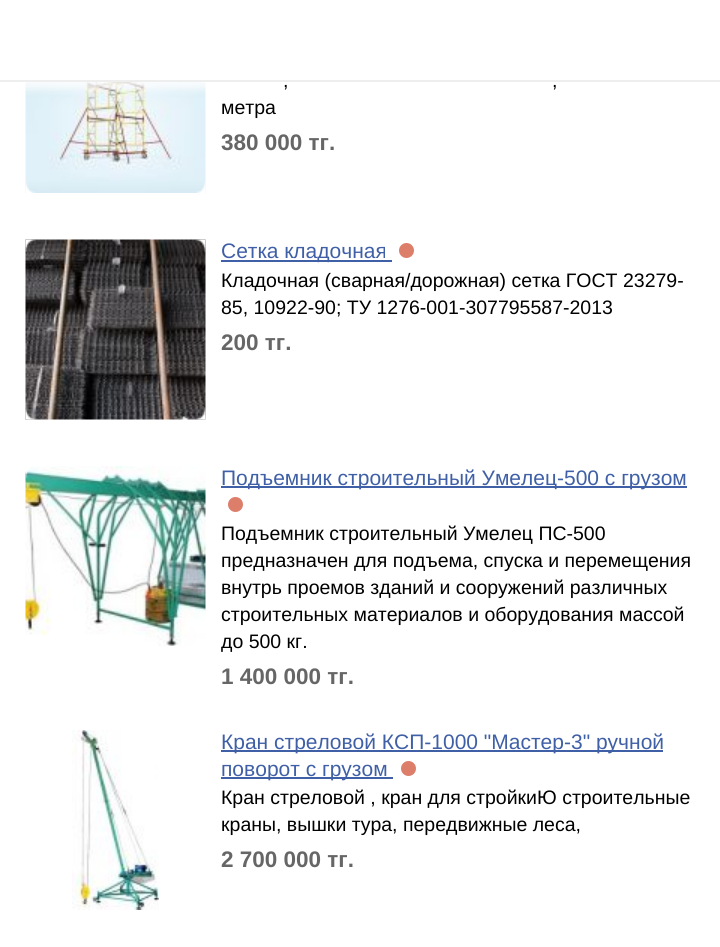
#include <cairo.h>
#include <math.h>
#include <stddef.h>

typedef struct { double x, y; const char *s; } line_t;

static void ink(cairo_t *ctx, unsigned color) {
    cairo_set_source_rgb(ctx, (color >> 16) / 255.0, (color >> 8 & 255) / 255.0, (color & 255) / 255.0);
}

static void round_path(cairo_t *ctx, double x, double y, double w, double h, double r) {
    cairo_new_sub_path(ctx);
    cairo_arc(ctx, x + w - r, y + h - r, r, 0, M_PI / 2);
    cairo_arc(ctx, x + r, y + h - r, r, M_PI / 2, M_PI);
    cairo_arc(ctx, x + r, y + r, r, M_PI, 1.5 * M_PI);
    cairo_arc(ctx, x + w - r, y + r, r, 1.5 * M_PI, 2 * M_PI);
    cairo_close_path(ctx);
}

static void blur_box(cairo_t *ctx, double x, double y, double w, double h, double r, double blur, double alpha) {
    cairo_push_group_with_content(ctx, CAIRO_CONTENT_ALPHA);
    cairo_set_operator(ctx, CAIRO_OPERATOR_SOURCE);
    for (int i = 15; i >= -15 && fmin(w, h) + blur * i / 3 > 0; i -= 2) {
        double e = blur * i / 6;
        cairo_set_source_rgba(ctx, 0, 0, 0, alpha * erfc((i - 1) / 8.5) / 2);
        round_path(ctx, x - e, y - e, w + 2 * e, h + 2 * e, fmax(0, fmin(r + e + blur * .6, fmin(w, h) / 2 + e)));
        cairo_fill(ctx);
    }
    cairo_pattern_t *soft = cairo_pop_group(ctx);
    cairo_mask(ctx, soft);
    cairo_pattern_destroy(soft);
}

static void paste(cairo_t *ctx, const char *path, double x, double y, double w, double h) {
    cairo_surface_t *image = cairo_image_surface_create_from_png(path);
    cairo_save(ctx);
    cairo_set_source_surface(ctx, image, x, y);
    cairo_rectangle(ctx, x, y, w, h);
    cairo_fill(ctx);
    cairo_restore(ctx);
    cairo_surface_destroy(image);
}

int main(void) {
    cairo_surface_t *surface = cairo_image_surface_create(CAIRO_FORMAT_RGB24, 720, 947);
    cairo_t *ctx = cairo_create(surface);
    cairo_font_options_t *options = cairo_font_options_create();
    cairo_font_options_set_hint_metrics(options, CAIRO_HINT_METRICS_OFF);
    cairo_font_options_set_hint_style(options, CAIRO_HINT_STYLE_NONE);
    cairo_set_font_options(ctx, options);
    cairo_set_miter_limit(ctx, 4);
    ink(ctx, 0xFFFFFF);
    cairo_paint(ctx);
    paste(ctx, "media/1.png", 25, 82, 181, 111);
    blur_box(ctx, 0, 8, 720, 81, 0, 4, 0.6);
    blur_box(ctx, 0, 29, 720, 58, 0, 4, 0.6);
    ink(ctx, 0xEEEEEE);
    cairo_rectangle(ctx, 0, 80, 720, 2);
    cairo_fill(ctx);
    paste(ctx, "media/2.png", 25, 180, 181, 13);
    cairo_select_font_face(ctx, "Liberation Sans", CAIRO_FONT_SLANT_NORMAL, CAIRO_FONT_WEIGHT_NORMAL);
    cairo_set_font_size(ctx, 19.5);
    ink(ctx, 0x000000);
    {
        static const line_t items[] = {
            {283, 87, ","},
            {552, 87, ","},
            {221, 114, "метра"},
        };
        for (size_t i = 0; i < sizeof items / sizeof *items; i++) {
            cairo_move_to(ctx, items[i].x, items[i].y);
            cairo_show_text(ctx, items[i].s);
        }
    }
    cairo_select_font_face(ctx, "Liberation Sans", CAIRO_FONT_SLANT_NORMAL, CAIRO_FONT_WEIGHT_BOLD);
    cairo_set_font_size(ctx, 22.5);
    ink(ctx, 0x666666);
    cairo_move_to(ctx, 221, 150);
    cairo_show_text(ctx, "380 000 тг.");
    paste(ctx, "media/3.png", 25, 239, 181, 181);
    paste(ctx, "media/4.png", 25, 239, 181, 181);
    ink(ctx, 0x3F5FA6);
    cairo_rectangle(ctx, 221, 260, 171, 2);
    cairo_fill(ctx);
    cairo_select_font_face(ctx, "Liberation Sans", CAIRO_FONT_SLANT_NORMAL, CAIRO_FONT_WEIGHT_NORMAL);
    cairo_set_font_size(ctx, 21);
    cairo_move_to(ctx, 221, 258);
    cairo_show_text(ctx, "Сетка кладочная");
    ink(ctx, 0xDD7E6B);
    cairo_new_path(ctx);
    cairo_arc(ctx, 406.5, 250.5, 7.5, 0, 2 * M_PI);
    cairo_fill(ctx);
    cairo_set_font_size(ctx, 19.5);
    ink(ctx, 0x000000);
    cairo_move_to(ctx, 221, 287);
    cairo_show_text(ctx, "Кладочная (сварная/дорожная) сетка ГОСТ 23279-");
    cairo_move_to(ctx, 221, 314);
    cairo_show_text(ctx, "85, 10922-90; ТУ 1276-001-307795587-2013");
    cairo_select_font_face(ctx, "Liberation Sans", CAIRO_FONT_SLANT_NORMAL, CAIRO_FONT_WEIGHT_BOLD);
    cairo_set_font_size(ctx, 22.5);
    ink(ctx, 0x666666);
    cairo_move_to(ctx, 221, 350);
    cairo_show_text(ctx, "200 тг.");
    paste(ctx, "media/5.png", 25, 466, 181, 180);
    paste(ctx, "media/6.png", 25, 467, 6, 12);
    ink(ctx, 0x3F5FA6);
    cairo_rectangle(ctx, 221, 486, 466, 2);
    cairo_fill(ctx);
    cairo_select_font_face(ctx, "Liberation Sans", CAIRO_FONT_SLANT_NORMAL, CAIRO_FONT_WEIGHT_NORMAL);
    cairo_set_font_size(ctx, 21);
    cairo_move_to(ctx, 221, 485);
    cairo_show_text(ctx, "Подъемник строительный Умелец-500 с грузом");
    ink(ctx, 0xDD7E6B);
    cairo_new_path(ctx);
    cairo_arc(ctx, 235.5, 504.5, 7.5, 0, 2 * M_PI);
    cairo_fill(ctx);
    cairo_set_font_size(ctx, 19.5);
    ink(ctx, 0x000000);
    {
        static const line_t items[] = {
            {221, 540, "Подъемник строительный Умелец ПС-500"},
            {221, 567, "предназначен для подъема, спуска и перемещения"},
            {221, 594, "внутрь проемов зданий и сооружений различных"},
            {221, 621, "строительных материалов и оборудования массой"},
            {221, 648, "до 500 кг."},
        };
        for (size_t i = 0; i < sizeof items / sizeof *items; i++) {
            cairo_move_to(ctx, items[i].x, items[i].y);
            cairo_show_text(ctx, items[i].s);
        }
    }
    cairo_select_font_face(ctx, "Liberation Sans", CAIRO_FONT_SLANT_NORMAL, CAIRO_FONT_WEIGHT_BOLD);
    cairo_set_font_size(ctx, 22.5);
    ink(ctx, 0x666666);
    cairo_move_to(ctx, 221, 684);
    cairo_show_text(ctx, "1 400 000 тг.");
    paste(ctx, "media/7.png", 72, 730, 87, 180);
    ink(ctx, 0x3F5FA6);
    cairo_rectangle(ctx, 221, 750, 442, 2);
    cairo_fill(ctx);
    cairo_select_font_face(ctx, "Liberation Sans", CAIRO_FONT_SLANT_NORMAL, CAIRO_FONT_WEIGHT_NORMAL);
    cairo_set_font_size(ctx, 21);
    cairo_move_to(ctx, 221, 749);
    cairo_show_text(ctx, "Кран стреловой КСП-1000 \"Мастер-3\" ручной");
    cairo_rectangle(ctx, 221, 777, 172, 2);
    cairo_fill(ctx);
    cairo_move_to(ctx, 221, 776);
    cairo_show_text(ctx, "поворот с грузом");
    ink(ctx, 0xDD7E6B);
    cairo_new_path(ctx);
    cairo_arc(ctx, 408.5, 768.5, 7.5, 0, 2 * M_PI);
    cairo_fill(ctx);
    cairo_set_font_size(ctx, 19.5);
    ink(ctx, 0x000000);
    cairo_move_to(ctx, 221, 804);
    cairo_show_text(ctx, "Кран стреловой , кран для стройкиЮ строительные");
    cairo_move_to(ctx, 221, 831);
    cairo_show_text(ctx, "краны, вышки тура, передвижные леса,");
    cairo_select_font_face(ctx, "Liberation Sans", CAIRO_FONT_SLANT_NORMAL, CAIRO_FONT_WEIGHT_BOLD);
    cairo_set_font_size(ctx, 22.5);
    ink(ctx, 0x666666);
    cairo_move_to(ctx, 221, 867);
    cairo_show_text(ctx, "2 700 000 тг.");
    cairo_surface_write_to_png(surface, "image.png");
    cairo_font_options_destroy(options);
    cairo_destroy(ctx);
    cairo_surface_destroy(surface);
    return 0;
}
